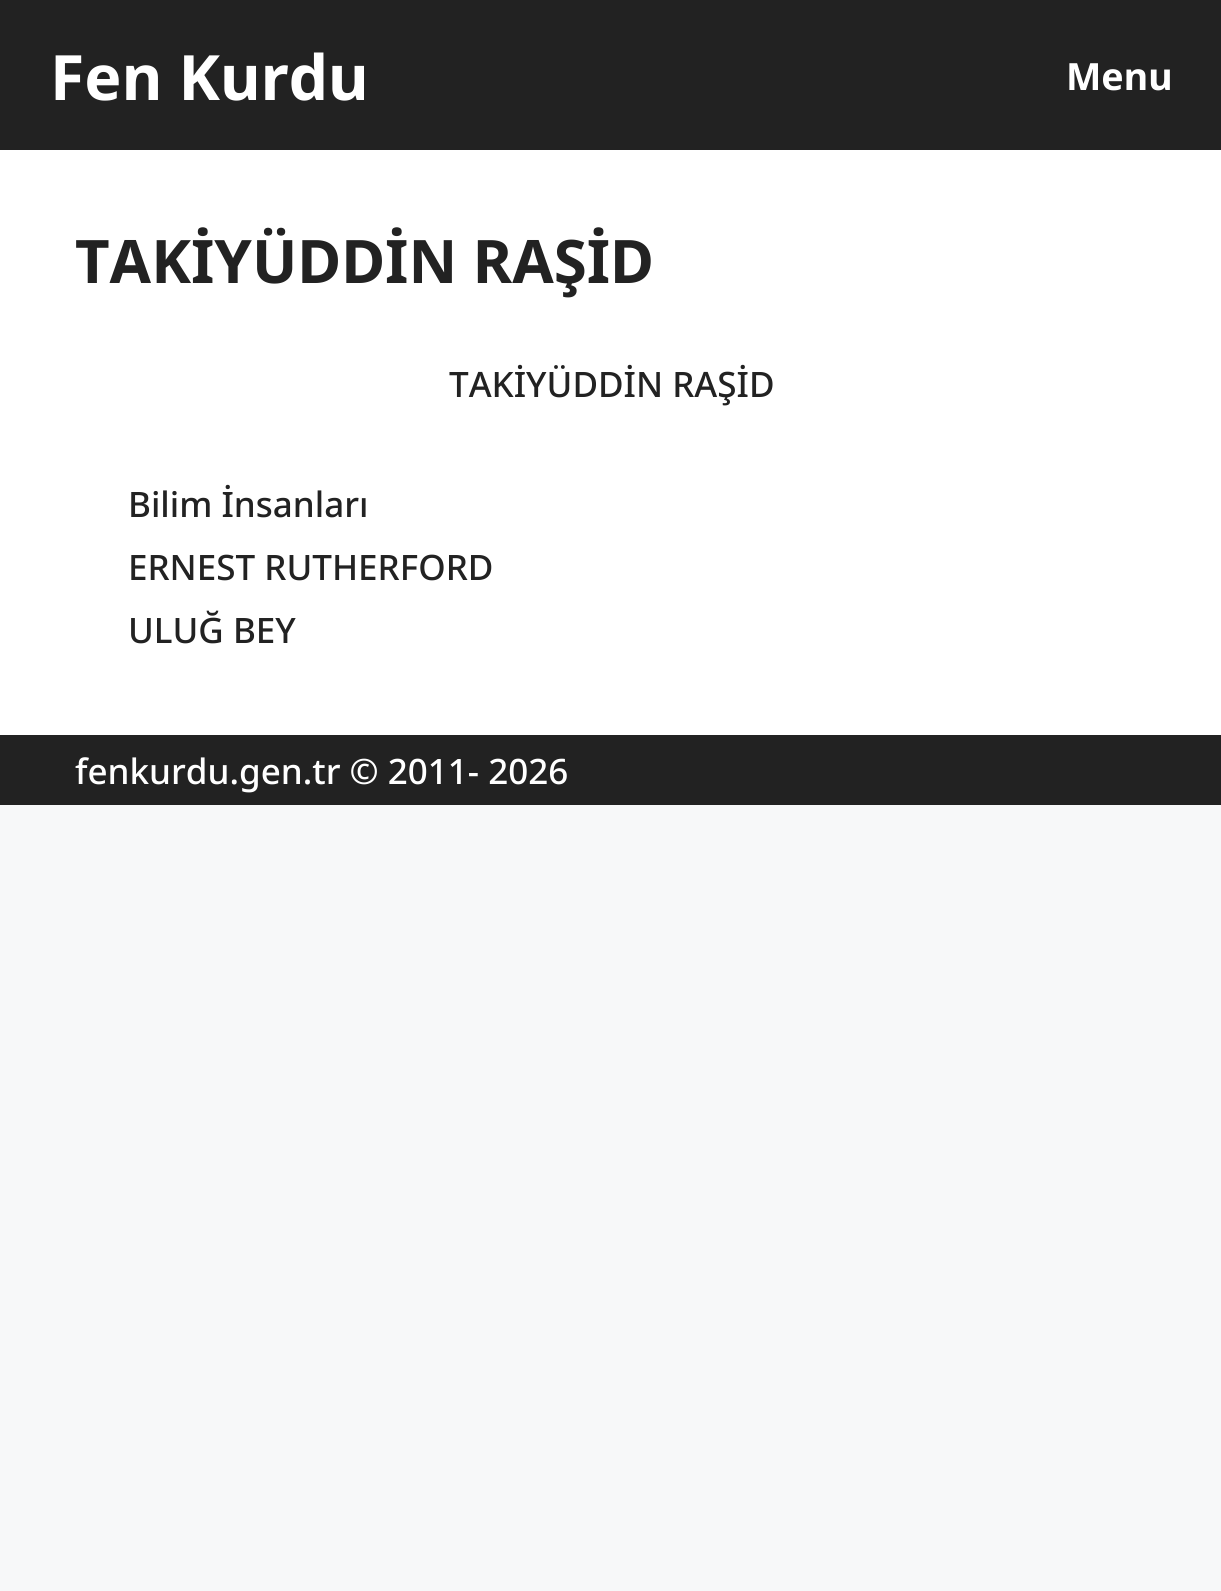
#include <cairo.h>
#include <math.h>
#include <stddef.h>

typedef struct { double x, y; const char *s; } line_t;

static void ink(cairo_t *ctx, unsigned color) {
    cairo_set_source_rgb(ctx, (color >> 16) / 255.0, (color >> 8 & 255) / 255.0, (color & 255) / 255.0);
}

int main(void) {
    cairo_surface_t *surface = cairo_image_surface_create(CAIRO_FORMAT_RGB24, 1221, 1591);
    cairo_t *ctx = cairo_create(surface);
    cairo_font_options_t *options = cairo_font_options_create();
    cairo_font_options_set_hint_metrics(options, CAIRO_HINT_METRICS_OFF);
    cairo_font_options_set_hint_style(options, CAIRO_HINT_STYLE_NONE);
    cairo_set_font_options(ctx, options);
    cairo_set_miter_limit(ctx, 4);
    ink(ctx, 0xF7F8F9);
    cairo_paint(ctx);
    ink(ctx, 0x222222);
    cairo_rectangle(ctx, 0, 0, 1221, 150);
    cairo_fill(ctx);
    cairo_select_font_face(ctx, "Noto Sans", CAIRO_FONT_SLANT_NORMAL, CAIRO_FONT_WEIGHT_BOLD);
    cairo_set_font_size(ctx, 62.5);
    ink(ctx, 0xFFFFFF);
    cairo_move_to(ctx, 50, 100);
    cairo_show_text(ctx, "Fen Kurdu");
    cairo_set_font_size(ctx, 37.5);
    cairo_move_to(ctx, 1066, 90);
    cairo_show_text(ctx, "Menu");
    cairo_rectangle(ctx, 0, 150, 1221, 585);
    cairo_fill(ctx);
    cairo_set_font_size(ctx, 60);
    ink(ctx, 0x222222);
    cairo_move_to(ctx, 75, 283);
    cairo_show_text(ctx, "TAKİYÜDDİN RAŞİD");
    cairo_select_font_face(ctx, "Noto Sans Medium", CAIRO_FONT_SLANT_NORMAL, CAIRO_FONT_WEIGHT_NORMAL);
    cairo_set_font_size(ctx, 35);
    {
        static const line_t items[] = {
            {449, 397, "TAKİYÜDDİN RAŞİD"},
            {128, 517, "Bilim İnsanları"},
            {128, 580, "ERNEST RUTHERFORD"},
            {128, 643, "ULUĞ BEY"},
        };
        for (size_t i = 0; i < sizeof items / sizeof *items; i++) {
            cairo_move_to(ctx, items[i].x, items[i].y);
            cairo_show_text(ctx, items[i].s);
        }
    }
    cairo_rectangle(ctx, 0, 735, 1221, 70);
    cairo_fill(ctx);
    ink(ctx, 0xFFFFFF);
    cairo_move_to(ctx, 75, 784);
    cairo_show_text(ctx, "fenkurdu.gen.tr © 2011- 2026");
    cairo_surface_write_to_png(surface, "image.png");
    cairo_font_options_destroy(options);
    cairo_destroy(ctx);
    cairo_surface_destroy(surface);
    return 0;
}
